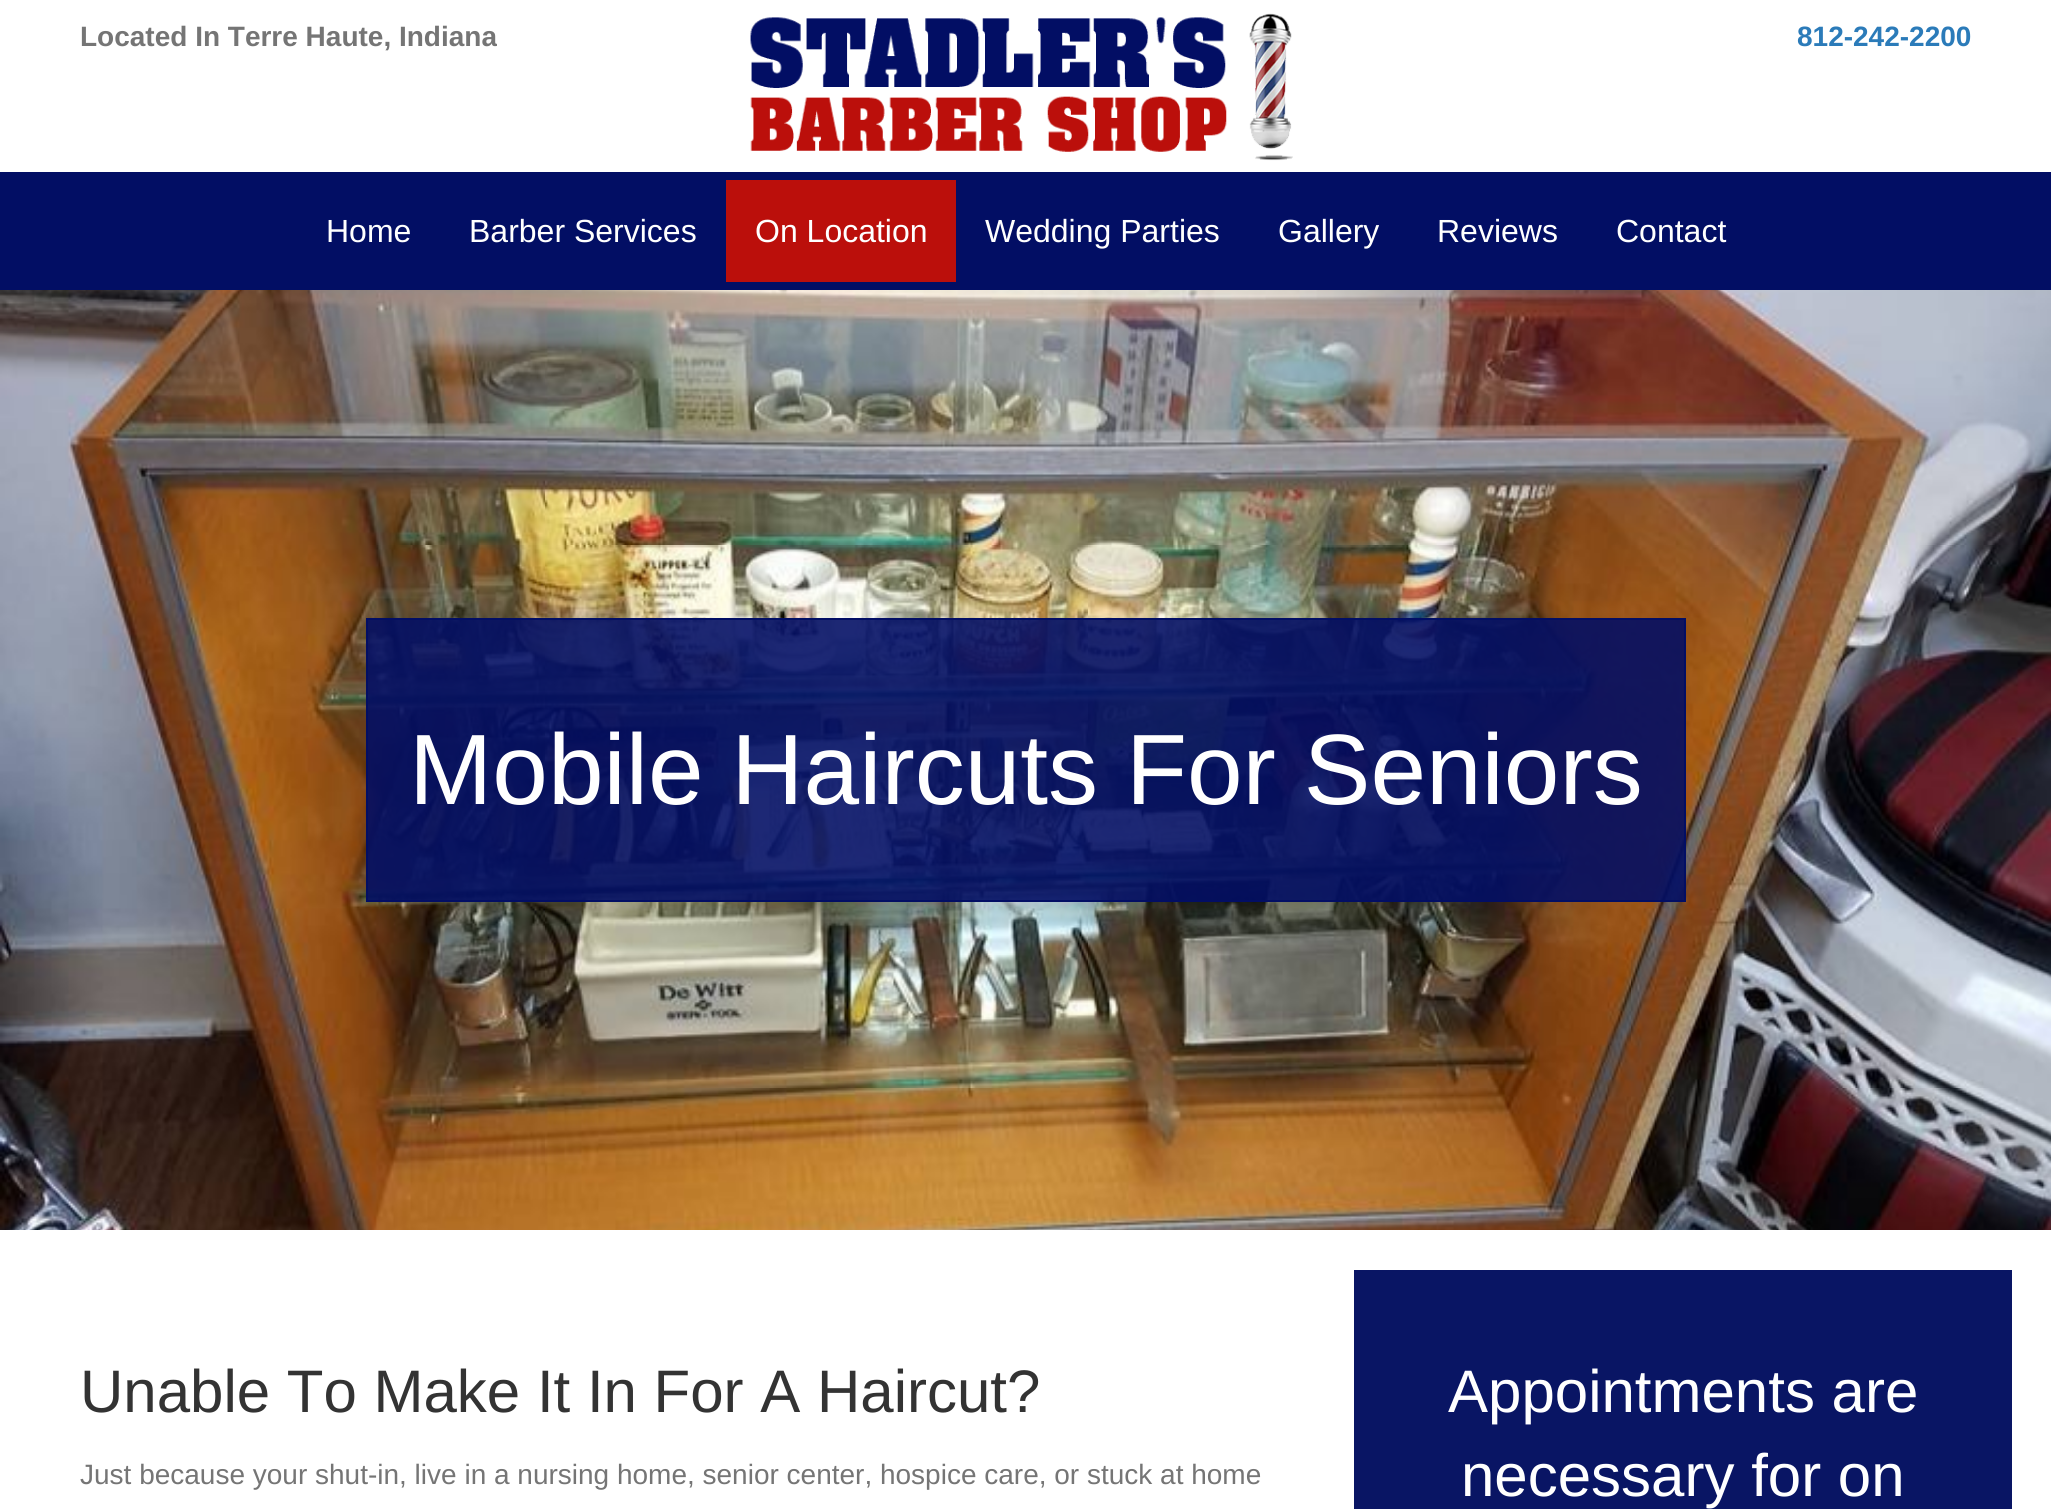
#include <cairo.h>
#include <math.h>
#include <stddef.h>

typedef struct { double x, y; const char *s; } line_t;

static void ink(cairo_t *ctx, unsigned color) {
    cairo_set_source_rgb(ctx, (color >> 16) / 255.0, (color >> 8 & 255) / 255.0, (color & 255) / 255.0);
}

static void paste(cairo_t *ctx, const char *path, double x, double y, double w, double h) {
    cairo_surface_t *image = cairo_image_surface_create_from_png(path);
    cairo_save(ctx);
    cairo_set_source_surface(ctx, image, x, y);
    cairo_rectangle(ctx, x, y, w, h);
    cairo_fill(ctx);
    cairo_restore(ctx);
    cairo_surface_destroy(image);
}

int main(void) {
    cairo_surface_t *surface = cairo_image_surface_create(CAIRO_FORMAT_RGB24, 2051, 1509);
    cairo_t *ctx = cairo_create(surface);
    cairo_font_options_t *options = cairo_font_options_create();
    cairo_font_options_set_hint_metrics(options, CAIRO_HINT_METRICS_OFF);
    cairo_font_options_set_hint_style(options, CAIRO_HINT_STYLE_NONE);
    cairo_set_font_options(ctx, options);
    cairo_set_miter_limit(ctx, 4);
    ink(ctx, 0xFFFFFF);
    cairo_paint(ctx);
    cairo_select_font_face(ctx, "Liberation Sans", CAIRO_FONT_SLANT_NORMAL, CAIRO_FONT_WEIGHT_BOLD);
    cairo_set_font_size(ctx, 28);
    ink(ctx, 0x757575);
    cairo_move_to(ctx, 80, 46);
    cairo_show_text(ctx, "Located In Terre Haute, Indiana");
    paste(ctx, "media/1.png", 750, 13, 543, 148);
    ink(ctx, 0x2B7BB9);
    cairo_move_to(ctx, 1797, 46);
    cairo_show_text(ctx, "812-242-2200");
    ink(ctx, 0x020E64);
    cairo_rectangle(ctx, 0, 172, 2051, 118);
    cairo_fill(ctx);
    cairo_select_font_face(ctx, "Liberation Sans", CAIRO_FONT_SLANT_NORMAL, CAIRO_FONT_WEIGHT_NORMAL);
    cairo_set_font_size(ctx, 32);
    ink(ctx, 0xFFFFFF);
    cairo_move_to(ctx, 326, 242);
    cairo_show_text(ctx, "Home");
    cairo_move_to(ctx, 469, 242);
    cairo_show_text(ctx, "Barber Services");
    ink(ctx, 0xBB0F0B);
    cairo_rectangle(ctx, 726, 180, 230, 102);
    cairo_fill(ctx);
    ink(ctx, 0xFFFFFF);
    {
        static const line_t items[] = {
            {755, 242, "On Location"},
            {985, 242, "Wedding Parties"},
            {1278, 242, "Gallery"},
            {1437, 242, "Reviews"},
            {1616, 242, "Contact"},
        };
        for (size_t i = 0; i < sizeof items / sizeof *items; i++) {
            cairo_move_to(ctx, items[i].x, items[i].y);
            cairo_show_text(ctx, items[i].s);
        }
    }
    paste(ctx, "media/2.png", 0, 290, 2051, 940);
    cairo_set_source_rgba(ctx, 0.008, 0.055, 0.392, 0.89);
    cairo_rectangle(ctx, 367, 619, 1318, 282);
    cairo_fill_preserve(ctx);
    ink(ctx, 0x020E64);
    cairo_stroke(ctx);
    cairo_set_font_size(ctx, 100);
    ink(ctx, 0xFFFFFF);
    cairo_move_to(ctx, 409, 804);
    cairo_show_text(ctx, "Mobile Haircuts For Seniors");
    cairo_set_font_size(ctx, 60);
    ink(ctx, 0x333333);
    cairo_move_to(ctx, 80, 1412);
    cairo_show_text(ctx, "Unable To Make It In For A Haircut?");
    cairo_set_font_size(ctx, 28);
    ink(ctx, 0x757575);
    cairo_move_to(ctx, 80, 1484);
    cairo_show_text(ctx, "Just because your shut-in, live in a nursing home, senior center, hospice care, or stuck at home");
    ink(ctx, 0x091564);
    cairo_rectangle(ctx, 1354, 1270, 658, 239);
    cairo_fill(ctx);
    cairo_set_font_size(ctx, 60);
    ink(ctx, 0xFFFFFF);
    cairo_move_to(ctx, 1448, 1412);
    cairo_show_text(ctx, "Appointments are");
    cairo_move_to(ctx, 1461, 1496);
    cairo_show_text(ctx, "necessary for on");
    cairo_surface_write_to_png(surface, "image.png");
    cairo_font_options_destroy(options);
    cairo_destroy(ctx);
    cairo_surface_destroy(surface);
    return 0;
}
